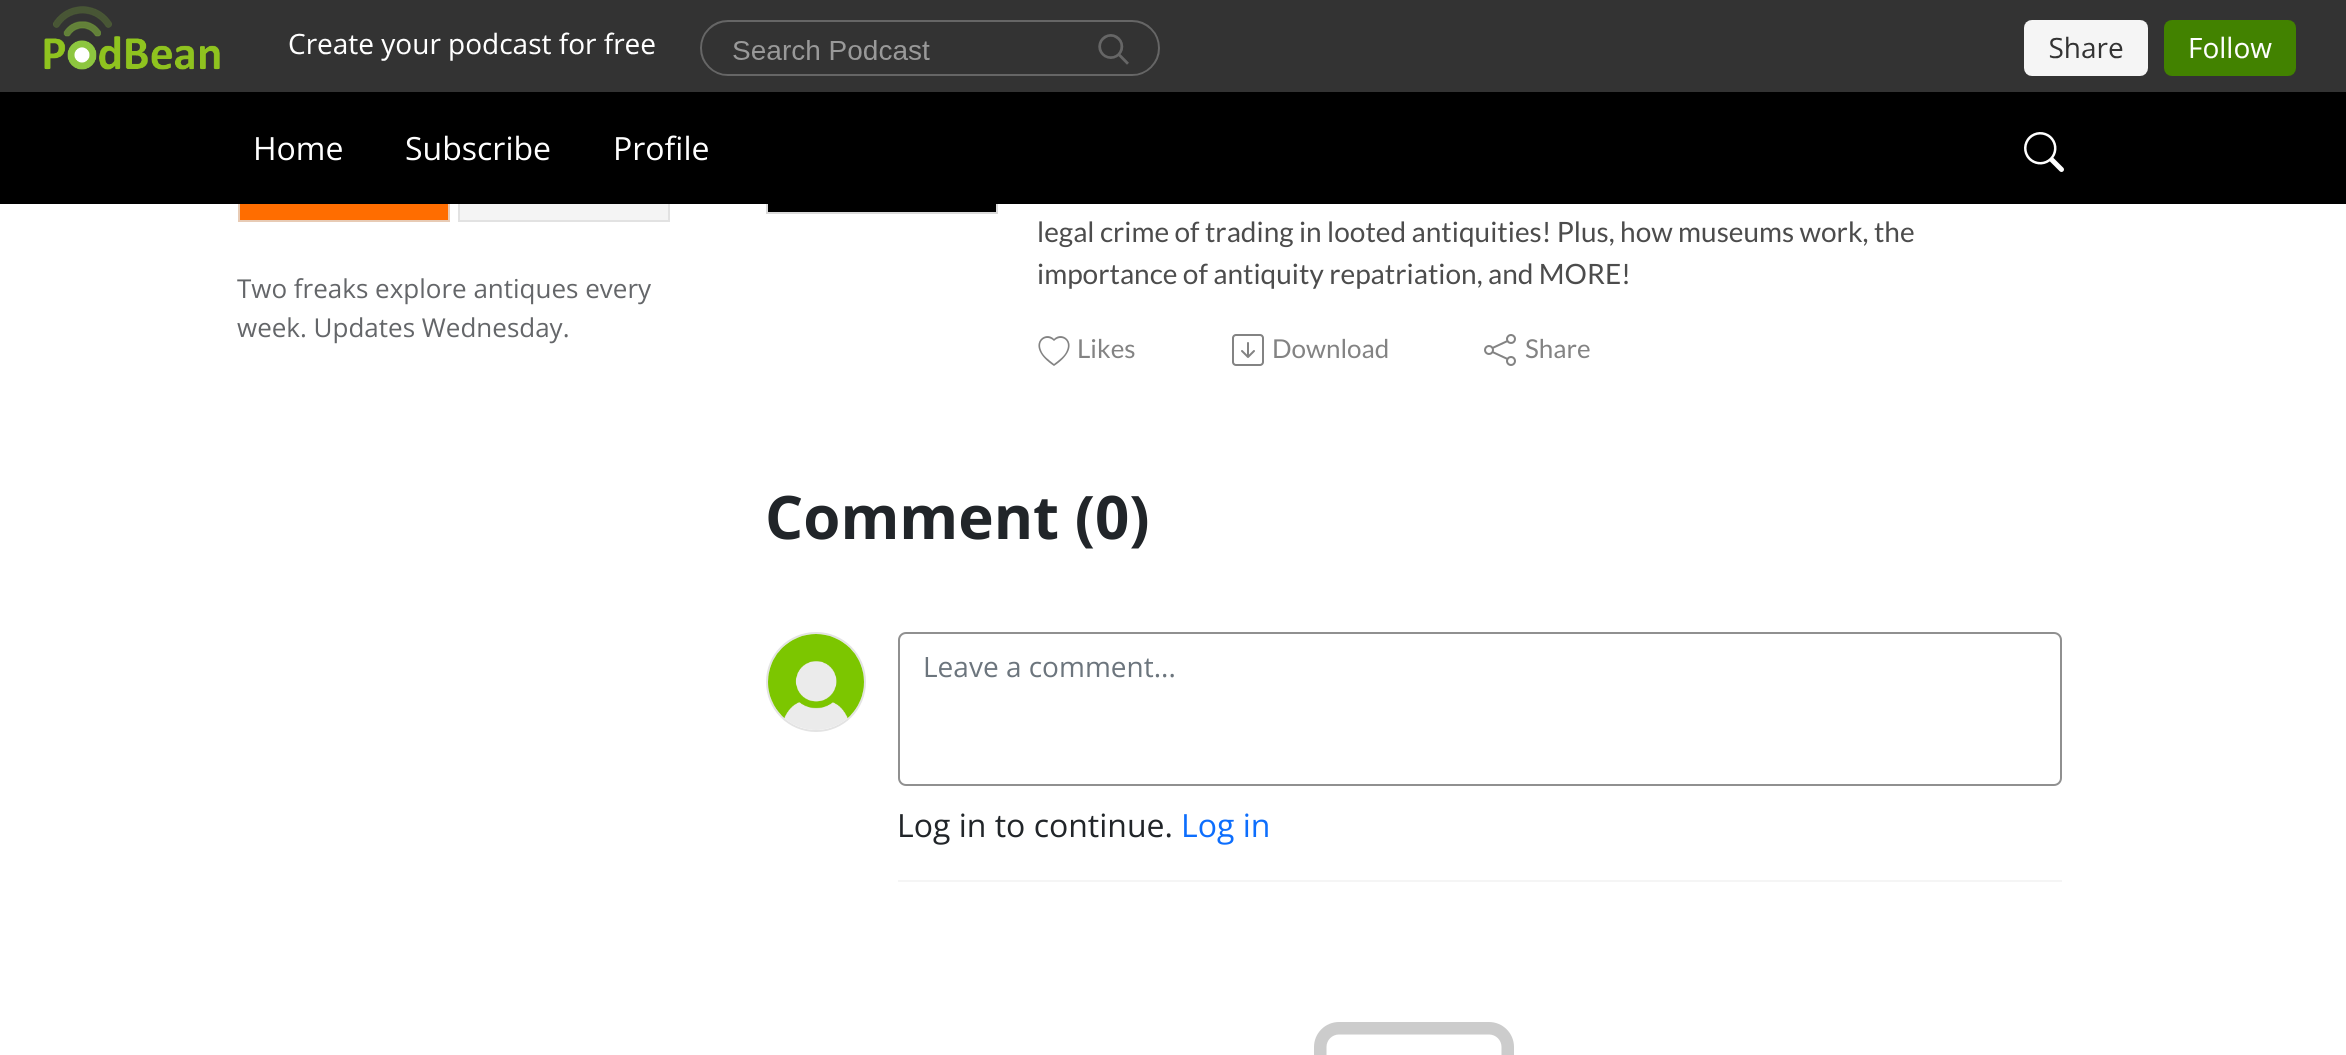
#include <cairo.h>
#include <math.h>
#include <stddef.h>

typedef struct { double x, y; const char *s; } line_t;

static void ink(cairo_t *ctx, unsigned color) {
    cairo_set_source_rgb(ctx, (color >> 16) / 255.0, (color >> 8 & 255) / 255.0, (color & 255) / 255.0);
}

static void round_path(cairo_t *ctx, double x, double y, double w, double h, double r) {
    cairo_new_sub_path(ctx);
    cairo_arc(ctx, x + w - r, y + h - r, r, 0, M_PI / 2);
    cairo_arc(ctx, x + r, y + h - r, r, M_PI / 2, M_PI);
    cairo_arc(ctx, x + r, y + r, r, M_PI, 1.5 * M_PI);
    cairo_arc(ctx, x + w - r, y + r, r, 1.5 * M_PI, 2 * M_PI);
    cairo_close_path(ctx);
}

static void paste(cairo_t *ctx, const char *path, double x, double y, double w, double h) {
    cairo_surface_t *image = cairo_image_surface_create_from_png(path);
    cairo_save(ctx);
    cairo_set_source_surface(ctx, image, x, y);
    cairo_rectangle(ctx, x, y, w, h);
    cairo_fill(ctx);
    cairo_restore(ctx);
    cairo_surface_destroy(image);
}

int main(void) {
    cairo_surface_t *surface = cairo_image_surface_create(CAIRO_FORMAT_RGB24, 2346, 1055);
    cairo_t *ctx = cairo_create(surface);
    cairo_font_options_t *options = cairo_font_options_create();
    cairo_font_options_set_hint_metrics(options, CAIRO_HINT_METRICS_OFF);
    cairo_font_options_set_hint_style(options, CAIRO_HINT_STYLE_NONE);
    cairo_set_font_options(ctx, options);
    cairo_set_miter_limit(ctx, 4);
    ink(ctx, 0xFFFFFF);
    cairo_paint(ctx);
    cairo_rectangle(ctx, 767, -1, 230, 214);
    ink(ctx, 0xDADADA);
    cairo_stroke(ctx);
    ink(ctx, 0x333333);
    cairo_rectangle(ctx, 0, 0, 2346, 92);
    cairo_fill(ctx);
    paste(ctx, "media/1.png", 44, 6, 2252, 70);
    ink(ctx, 0xFF6D00);
    cairo_rectangle(ctx, 240, 204, 208, 16);
    cairo_fill(ctx);
    cairo_rectangle(ctx, 239, 157, 210, 64);
    ink(ctx, 0xE8CBB5);
    cairo_stroke(ctx);
    ink(ctx, 0xF4F4F4);
    cairo_rectangle(ctx, 460, 204, 208, 16);
    cairo_fill(ctx);
    cairo_rectangle(ctx, 459, 157, 210, 64);
    ink(ctx, 0xE2E2E2);
    cairo_stroke(ctx);
    ink(ctx, 0x000000);
    cairo_rectangle(ctx, 0, 92, 2346, 112);
    cairo_fill(ctx);
    cairo_select_font_face(ctx, "Open Sans", CAIRO_FONT_SLANT_NORMAL, CAIRO_FONT_WEIGHT_NORMAL);
    cairo_set_font_size(ctx, 32);
    ink(ctx, 0xFFFFFF);
    {
        static const line_t items[] = {
            {253, 160, "Home"},
            {405, 160, "Subscribe"},
            {613, 160, "Profile"},
        };
        for (size_t i = 0; i < sizeof items / sizeof *items; i++) {
            cairo_move_to(ctx, items[i].x, items[i].y);
            cairo_show_text(ctx, items[i].s);
        }
    }
    paste(ctx, "media/2.png", 2024, 132, 40, 40);
    cairo_set_font_size(ctx, 26);
    ink(ctx, 0x646669);
    cairo_move_to(ctx, 237, 298);
    cairo_show_text(ctx, "Two freaks explore antiques every");
    cairo_move_to(ctx, 237, 337);
    cairo_show_text(ctx, "week. Updates Wednesday.");
    paste(ctx, "media/3.png", 768, 204, 228, 8);
    cairo_select_font_face(ctx, "Lato", CAIRO_FONT_SLANT_NORMAL, CAIRO_FONT_WEIGHT_NORMAL);
    cairo_set_font_size(ctx, 28);
    ink(ctx, 0x4C4C4C);
    cairo_move_to(ctx, 1037, 242);
    cairo_show_text(ctx, "legal crime of trading in looted antiquities! Plus, how museums work, the");
    cairo_move_to(ctx, 1037, 284);
    cairo_show_text(ctx, "importance of antiquity repatriation, and MORE!");
    ink(ctx, 0x838383);
    cairo_new_path(ctx);
    cairo_move_to(ctx, 1054, 341);
    cairo_curve_to(ctx, 1047, 334, 1037, 340, 1041, 350);
    cairo_curve_to(ctx, 1043, 356, 1049, 360, 1054, 364);
    cairo_curve_to(ctx, 1059, 360, 1065, 356, 1067, 350);
    cairo_curve_to(ctx, 1071, 340, 1061, 334, 1054, 341);
    cairo_close_path(ctx);
    cairo_move_to(ctx, 1054, 366);
    cairo_curve_to(ctx, 1024, 346, 1045, 329, 1054, 339);
    cairo_curve_to(ctx, 1063, 329, 1084, 346, 1054, 366);
    cairo_close_path(ctx);
    cairo_fill(ctx);
    cairo_set_font_size(ctx, 26);
    cairo_move_to(ctx, 1077, 358);
    cairo_show_text(ctx, "Likes");
    paste(ctx, "media/4.png", 1232, 334, 32, 32);
    cairo_move_to(ctx, 1272, 358);
    cairo_show_text(ctx, "Download");
    paste(ctx, "media/5.png", 1484, 334, 32, 32);
    cairo_move_to(ctx, 1525, 358);
    cairo_show_text(ctx, "Share");
    cairo_select_font_face(ctx, "Open Sans", CAIRO_FONT_SLANT_NORMAL, CAIRO_FONT_WEIGHT_BOLD);
    cairo_set_font_size(ctx, 60);
    ink(ctx, 0x212529);
    cairo_move_to(ctx, 765, 539);
    cairo_show_text(ctx, "Comment (0)");
    cairo_new_path(ctx);
    cairo_arc(ctx, 816, 682, 49, 0, 2 * M_PI);
    ink(ctx, 0xE3E3E3);
    cairo_stroke(ctx);
    paste(ctx, "media/6.png", 768, 634, 96, 96);
    ink(ctx, 0xF5F5F5);
    cairo_rectangle(ctx, 898, 880, 1164, 2);
    cairo_fill(ctx);
    round_path(ctx, 899, 633, 1162, 152, 7);
    ink(ctx, 0x909090);
    cairo_stroke(ctx);
    cairo_select_font_face(ctx, "Open Sans", CAIRO_FONT_SLANT_NORMAL, CAIRO_FONT_WEIGHT_NORMAL);
    cairo_set_font_size(ctx, 28);
    ink(ctx, 0x6C757D);
    cairo_move_to(ctx, 923, 677);
    cairo_show_text(ctx, "Leave a comment...");
    cairo_set_font_size(ctx, 32);
    ink(ctx, 0x212529);
    cairo_move_to(ctx, 897, 837);
    cairo_show_text(ctx, "Log in to continue.");
    ink(ctx, 0x0D6EFD);
    cairo_move_to(ctx, 1181, 837);
    cairo_show_text(ctx, "Log in");
    paste(ctx, "media/7.png", 1314, 1022, 200, 33);
    cairo_surface_write_to_png(surface, "image.png");
    cairo_font_options_destroy(options);
    cairo_destroy(ctx);
    cairo_surface_destroy(surface);
    return 0;
}
